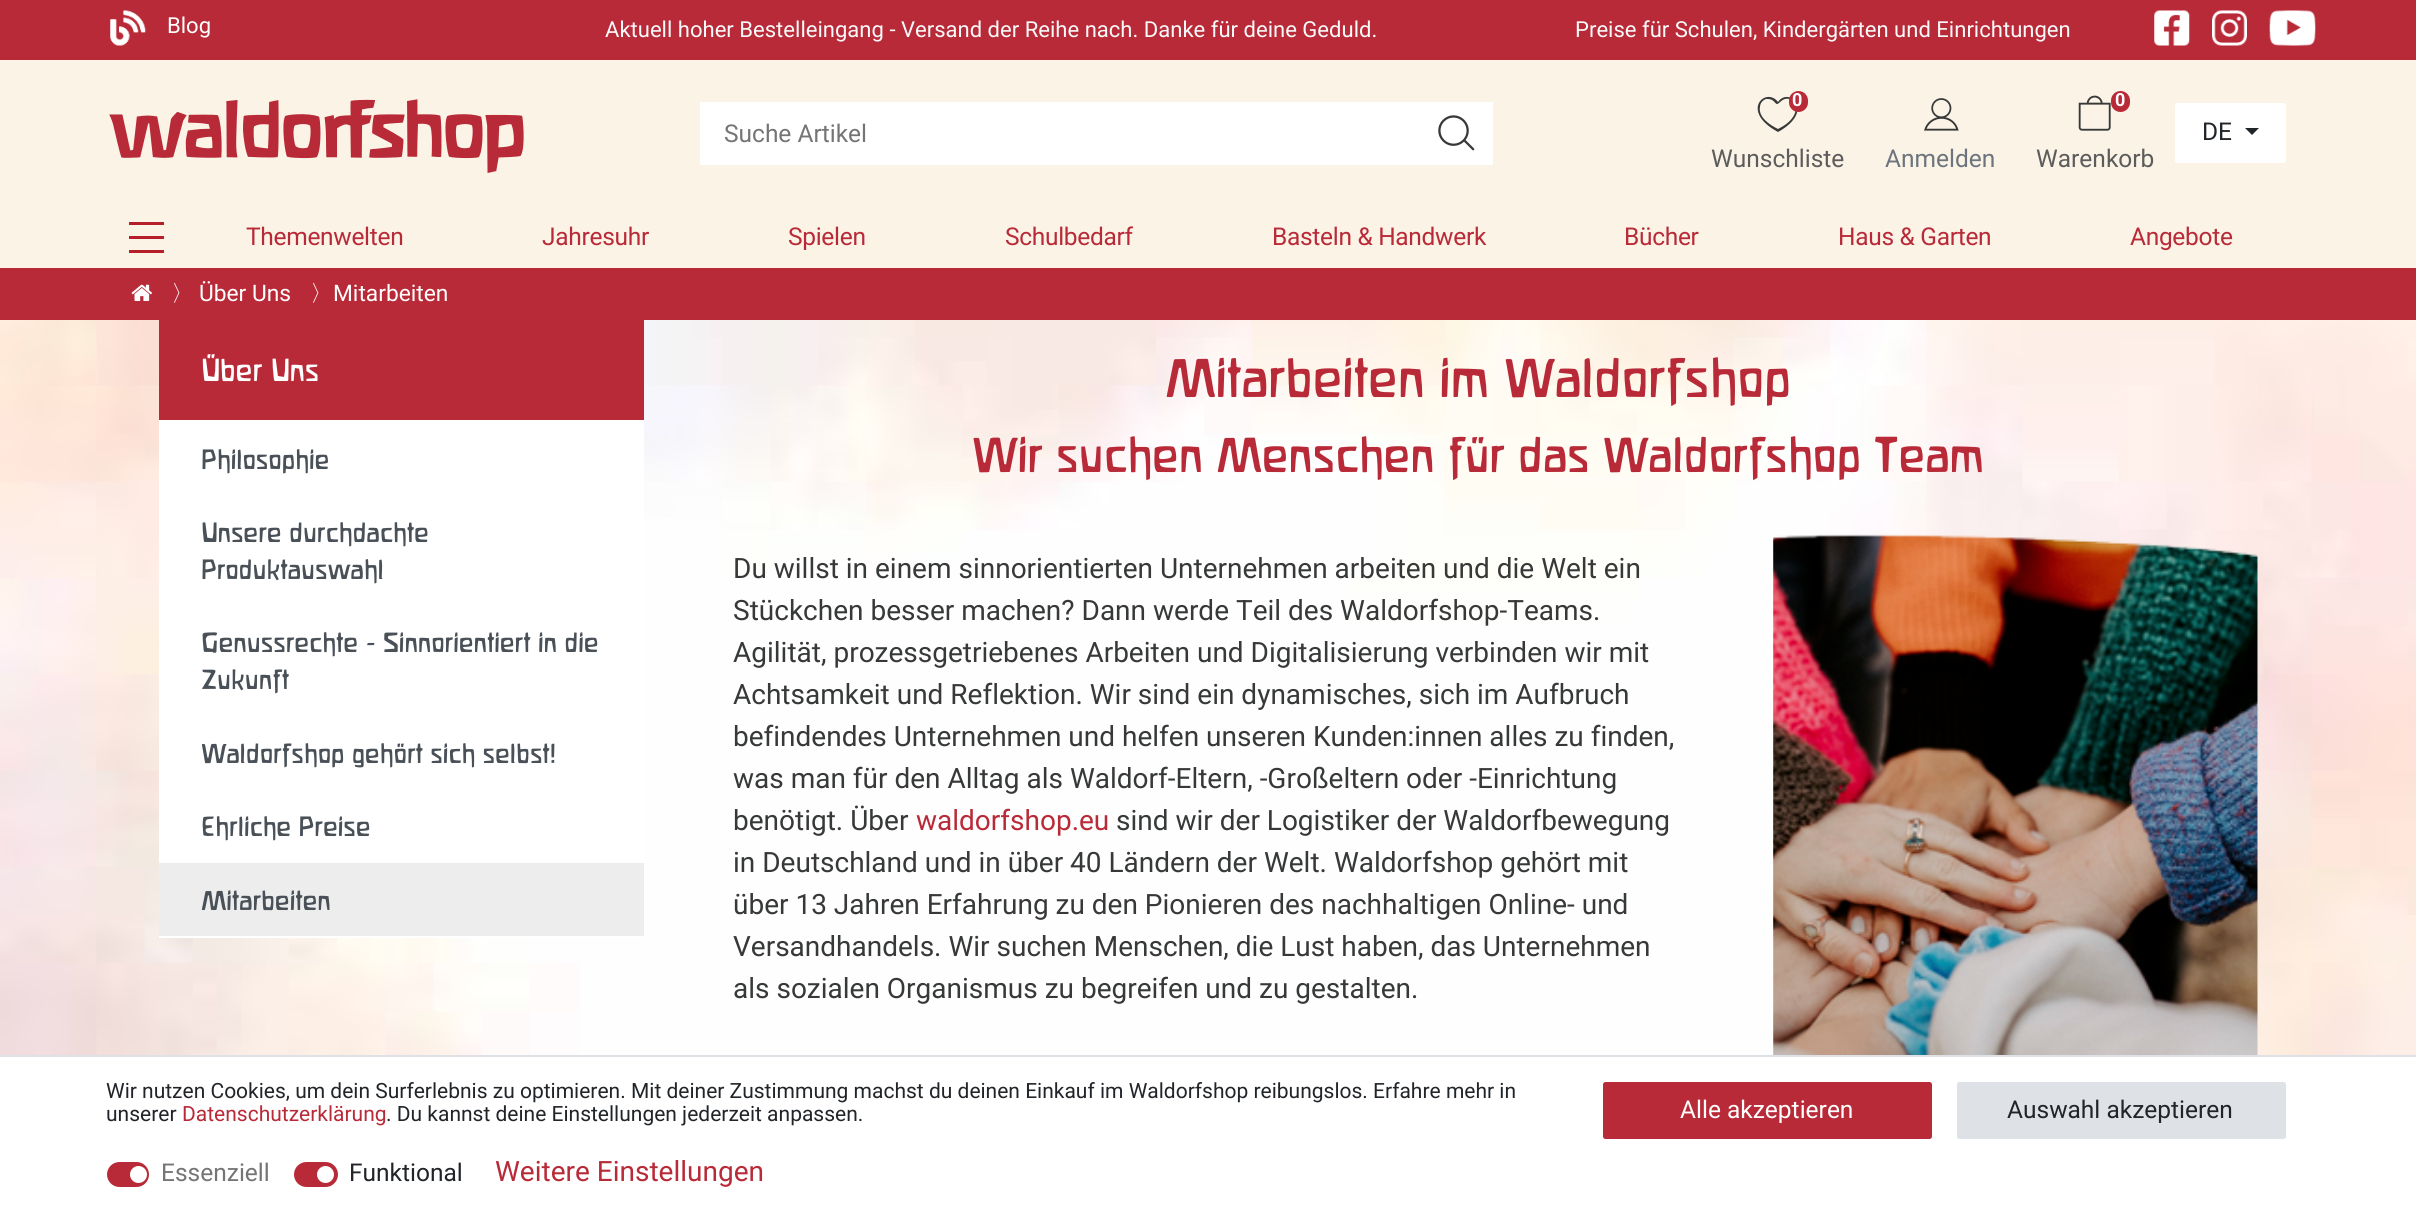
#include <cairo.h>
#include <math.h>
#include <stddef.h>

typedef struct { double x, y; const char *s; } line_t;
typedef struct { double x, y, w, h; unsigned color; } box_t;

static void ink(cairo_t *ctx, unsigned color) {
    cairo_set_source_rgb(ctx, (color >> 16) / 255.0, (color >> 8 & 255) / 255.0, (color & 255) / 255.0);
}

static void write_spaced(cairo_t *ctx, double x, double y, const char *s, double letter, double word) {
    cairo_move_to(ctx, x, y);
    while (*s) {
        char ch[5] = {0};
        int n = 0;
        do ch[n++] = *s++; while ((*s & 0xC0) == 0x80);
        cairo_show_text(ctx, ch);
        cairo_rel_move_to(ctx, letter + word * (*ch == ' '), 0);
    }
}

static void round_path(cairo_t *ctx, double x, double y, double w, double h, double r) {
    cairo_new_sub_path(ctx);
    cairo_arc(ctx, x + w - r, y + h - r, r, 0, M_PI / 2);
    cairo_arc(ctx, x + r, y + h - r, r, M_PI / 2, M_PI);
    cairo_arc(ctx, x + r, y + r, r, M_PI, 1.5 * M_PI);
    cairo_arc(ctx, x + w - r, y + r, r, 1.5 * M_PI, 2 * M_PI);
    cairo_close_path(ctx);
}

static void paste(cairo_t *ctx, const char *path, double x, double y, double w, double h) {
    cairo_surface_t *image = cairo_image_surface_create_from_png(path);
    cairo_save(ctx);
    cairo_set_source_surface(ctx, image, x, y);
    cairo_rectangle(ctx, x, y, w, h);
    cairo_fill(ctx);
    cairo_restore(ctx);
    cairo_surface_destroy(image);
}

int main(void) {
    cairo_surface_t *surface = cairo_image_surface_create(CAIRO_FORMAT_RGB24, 2416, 1217);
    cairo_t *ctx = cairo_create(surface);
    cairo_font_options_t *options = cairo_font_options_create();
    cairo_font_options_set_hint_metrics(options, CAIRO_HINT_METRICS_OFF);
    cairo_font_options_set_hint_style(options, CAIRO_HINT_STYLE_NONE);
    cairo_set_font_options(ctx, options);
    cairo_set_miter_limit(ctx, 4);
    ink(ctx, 0xFFFFFF);
    cairo_paint(ctx);
    ink(ctx, 0xB92A38);
    cairo_rectangle(ctx, 0, 0, 2416, 60);
    cairo_fill(ctx);
    paste(ctx, "media/1.png", 110, 10, 36, 36);
    cairo_select_font_face(ctx, "Roboto", CAIRO_FONT_SLANT_NORMAL, CAIRO_FONT_WEIGHT_NORMAL);
    cairo_set_font_size(ctx, 22.05);
    ink(ctx, 0xFFFFFF);
    cairo_move_to(ctx, 167, 33);
    cairo_show_text(ctx, "Blog");
    ink(ctx, 0xF8F9FA);
    cairo_move_to(ctx, 605, 37);
    cairo_show_text(ctx, "Aktuell hoher Bestelleingang - Versand der Reihe nach. Danke für deine Geduld.");
    cairo_move_to(ctx, 1575, 37);
    cairo_show_text(ctx, "Preise für Schulen, Kindergärten und Einrichtungen");
    paste(ctx, "media/2.png", 2154, 10, 36, 36);
    paste(ctx, "media/3.png", 2212, 10, 35, 36);
    paste(ctx, "media/4.png", 2269, 10, 47, 36);
    ink(ctx, 0xFBF3E6);
    cairo_rectangle(ctx, 0, 60, 2416, 208);
    cairo_fill(ctx);
    paste(ctx, "media/5.png", 109, 99, 415, 74);
    ink(ctx, 0xFFFFFF);
    cairo_rectangle(ctx, 700, 102, 793, 63);
    cairo_fill(ctx);
    cairo_set_font_size(ctx, 24.5);
    ink(ctx, 0x757575);
    cairo_move_to(ctx, 724, 142);
    cairo_show_text(ctx, "Suche Artikel");
    paste(ctx, "media/6.png", 1438, 115, 37, 36);
    ink(ctx, 0x373939);
    cairo_new_path(ctx);
    cairo_move_to(ctx, 1778, 132);
    cairo_curve_to(ctx, 1739, 111, 1766, 86, 1778, 102);
    cairo_curve_to(ctx, 1789, 86, 1816, 111, 1778, 132);
    cairo_close_path(ctx);
    cairo_move_to(ctx, 1768, 99);
    cairo_line_to(ctx, 1766, 99);
    cairo_curve_to(ctx, 1763, 100, 1760, 103, 1760, 107);
    cairo_curve_to(ctx, 1759, 111, 1760, 120, 1778, 129);
    cairo_curve_to(ctx, 1784, 126, 1792, 121, 1795, 113);
    cairo_curve_to(ctx, 1797, 106, 1793, 97, 1785, 99);
    cairo_curve_to(ctx, 1781, 100, 1779, 104, 1777, 104);
    cairo_curve_to(ctx, 1775, 104, 1774, 99, 1768, 99);
    cairo_close_path(ctx);
    cairo_move_to(ctx, 1778, 102);
    cairo_close_path(ctx);
    cairo_fill(ctx);
    ink(ctx, 0xB92A38);
    round_path(ctx, 1789, 91, 19, 21, 9.5);
    cairo_fill(ctx);
    cairo_select_font_face(ctx, "Roboto", CAIRO_FONT_SLANT_NORMAL, CAIRO_FONT_WEIGHT_BOLD);
    cairo_set_font_size(ctx, 18);
    ink(ctx, 0xFFFFFF);
    cairo_move_to(ctx, 1792, 106);
    cairo_show_text(ctx, "0");
    cairo_select_font_face(ctx, "Roboto", CAIRO_FONT_SLANT_NORMAL, CAIRO_FONT_WEIGHT_NORMAL);
    cairo_set_font_size(ctx, 24.5);
    ink(ctx, 0x5C5C5C);
    cairo_move_to(ctx, 1711, 167);
    cairo_show_text(ctx, "Wunschliste");
    paste(ctx, "media/7.png", 2078, 95, 33, 36);
    ink(ctx, 0xB92A38);
    round_path(ctx, 2111, 91, 19, 21, 9.5);
    cairo_fill(ctx);
    cairo_select_font_face(ctx, "Roboto", CAIRO_FONT_SLANT_NORMAL, CAIRO_FONT_WEIGHT_BOLD);
    cairo_set_font_size(ctx, 18);
    ink(ctx, 0xFFFFFF);
    cairo_move_to(ctx, 2115, 106);
    cairo_show_text(ctx, "0");
    cairo_select_font_face(ctx, "Roboto", CAIRO_FONT_SLANT_NORMAL, CAIRO_FONT_WEIGHT_NORMAL);
    cairo_set_font_size(ctx, 24.5);
    ink(ctx, 0x5C5C5C);
    cairo_move_to(ctx, 2036, 167);
    cairo_show_text(ctx, "Warenkorb");
    ink(ctx, 0xFFFFFF);
    round_path(ctx, 2175, 103, 111, 60, 2.5);
    cairo_fill(ctx);
    ink(ctx, 0x212529);
    cairo_move_to(ctx, 2202, 140);
    cairo_show_text(ctx, "DE");
    cairo_new_path(ctx);
    cairo_move_to(ctx, 2245, 128);
    cairo_line_to(ctx, 2259, 128);
    cairo_line_to(ctx, 2252, 135);
    cairo_close_path(ctx);
    cairo_fill(ctx);
    paste(ctx, "media/8.png", 1924, 98, 35, 33);
    ink(ctx, 0x6C757D);
    cairo_move_to(ctx, 1885, 167);
    cairo_show_text(ctx, "Anmelden");
    {
        static const box_t items[] = {
            {129, 222, 35, 3, 0xB61F29},
            {129, 236, 35, 3, 0xB61F29},
            {129, 250, 35, 3, 0xB61F29},
        };
        for (size_t i = 0; i < sizeof items / sizeof *items; i++) {
            ink(ctx, items[i].color);
            cairo_rectangle(ctx, items[i].x, items[i].y, items[i].w, items[i].h);
            cairo_fill(ctx);
        }
    }
    ink(ctx, 0xB92A38);
    {
        static const line_t items[] = {
            {246, 245, "Themenwelten"},
            {542, 245, "Jahresuhr"},
            {788, 245, "Spielen"},
            {1005, 245, "Schulbedarf"},
            {1272, 245, "Basteln & Handwerk"},
            {1624, 245, "Bücher"},
            {1838, 245, "Haus & Garten"},
            {2130, 245, "Angebote"},
        };
        for (size_t i = 0; i < sizeof items / sizeof *items; i++) {
            write_spaced(ctx, items[i].x, items[i].y, items[i].s, -0.3, 0);
        }
    }
    cairo_rectangle(ctx, 0, 268, 2416, 52);
    cairo_fill(ctx);
    paste(ctx, "media/9.png", 131, 284, 21, 17);
    cairo_select_font_face(ctx, "WenQuanYi Zen Hei Medium", CAIRO_FONT_SLANT_NORMAL, CAIRO_FONT_WEIGHT_NORMAL);
    cairo_set_font_size(ctx, 22.75);
    ink(ctx, 0xFFFFFF);
    cairo_move_to(ctx, 171, 301);
    cairo_show_text(ctx, "〉");
    cairo_select_font_face(ctx, "Roboto", CAIRO_FONT_SLANT_NORMAL, CAIRO_FONT_WEIGHT_NORMAL);
    cairo_move_to(ctx, 199, 301);
    cairo_show_text(ctx, "Über Uns");
    cairo_select_font_face(ctx, "WenQuanYi Zen Hei Medium", CAIRO_FONT_SLANT_NORMAL, CAIRO_FONT_WEIGHT_NORMAL);
    cairo_move_to(ctx, 310, 301);
    cairo_show_text(ctx, "〉");
    cairo_select_font_face(ctx, "Roboto", CAIRO_FONT_SLANT_NORMAL, CAIRO_FONT_WEIGHT_NORMAL);
    cairo_move_to(ctx, 333, 301);
    cairo_show_text(ctx, "Mitarbeiten");
    paste(ctx, "media/10.png", 0, 320, 2416, 735);
    cairo_rectangle(ctx, 159, 420, 485, 518);
    cairo_fill(ctx);
    ink(ctx, 0xB92A38);
    cairo_rectangle(ctx, 159, 320, 485, 100);
    cairo_fill(ctx);
    cairo_select_font_face(ctx, "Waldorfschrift", CAIRO_FONT_SLANT_NORMAL, CAIRO_FONT_WEIGHT_NORMAL);
    cairo_set_font_size(ctx, 28);
    ink(ctx, 0xFFFFFF);
    cairo_move_to(ctx, 201, 381);
    cairo_show_text(ctx, "Über Uns");
    cairo_set_font_size(ctx, 24.5);
    ink(ctx, 0x495057);
    {
        static const line_t items[] = {
            {201, 469, "Philosophie"},
            {201, 542, "Unsere durchdachte"},
            {201, 579, "Produktauswahl"},
            {201, 652, "Genussrechte - Sinnorientiert in die"},
            {201, 689, "Zukunft"},
            {201, 763, "Waldorfshop gehört sich selbst!"},
            {201, 836, "Ehrliche Preise"},
        };
        for (size_t i = 0; i < sizeof items / sizeof *items; i++) {
            cairo_move_to(ctx, items[i].x, items[i].y);
            cairo_show_text(ctx, items[i].s);
        }
    }
    ink(ctx, 0xEDEDED);
    cairo_rectangle(ctx, 159, 863, 485, 73);
    cairo_fill(ctx);
    ink(ctx, 0x495057);
    cairo_move_to(ctx, 201, 910);
    cairo_show_text(ctx, "Mitarbeiten");
    cairo_set_font_size(ctx, 49);
    ink(ctx, 0xB92A38);
    cairo_move_to(ctx, 1165, 397);
    cairo_show_text(ctx, "Mitarbeiten im Waldorfshop");
    cairo_set_font_size(ctx, 44.1);
    cairo_move_to(ctx, 972, 472);
    cairo_show_text(ctx, "Wir suchen Menschen für das Waldorfshop Team");
    cairo_select_font_face(ctx, "Roboto", CAIRO_FONT_SLANT_NORMAL, CAIRO_FONT_WEIGHT_NORMAL);
    cairo_set_font_size(ctx, 28);
    ink(ctx, 0x373939);
    {
        static const line_t items[] = {
            {733, 578, "Du willst in einem sinnorientierten Unternehmen arbeiten und die Welt ein"},
            {733, 620, "Stückchen besser machen? Dann werde Teil des Waldorfshop-Teams."},
            {733, 662, "Agilität, prozessgetriebenes Arbeiten und Digitalisierung verbinden wir mit"},
            {733, 704, "Achtsamkeit und Reflektion. Wir sind ein dynamisches, sich im Aufbruch"},
            {733, 746, "befindendes Unternehmen und helfen unseren Kunden:innen alles zu finden,"},
            {733, 788, "was man für den Alltag als Waldorf-Eltern, -Großeltern oder -Einrichtung"},
            {733, 830, "benötigt. Über"},
        };
        for (size_t i = 0; i < sizeof items / sizeof *items; i++) {
            cairo_move_to(ctx, items[i].x, items[i].y);
            cairo_show_text(ctx, items[i].s);
        }
    }
    ink(ctx, 0xB92A38);
    cairo_move_to(ctx, 916, 830);
    cairo_show_text(ctx, "waldorfshop.eu");
    ink(ctx, 0x373939);
    {
        static const line_t items[] = {
            {1116, 830, "sind wir der Logistiker der Waldorfbewegung"},
            {733, 872, "in Deutschland und in über 40 Ländern der Welt. Waldorfshop gehört mit"},
            {733, 914, "über 13 Jahren Erfahrung zu den Pionieren des nachhaltigen Online- und"},
            {733, 956, "Versandhandels. Wir suchen Menschen, die Lust haben, das Unternehmen"},
            {733, 998, "als sozialen Organismus zu begreifen und zu gestalten."},
        };
        for (size_t i = 0; i < sizeof items / sizeof *items; i++) {
            cairo_move_to(ctx, items[i].x, items[i].y);
            cairo_show_text(ctx, items[i].s);
        }
    }
    paste(ctx, "media/11.png", 1773, 534, 485, 521);
    ink(ctx, 0xDEE2E6);
    cairo_rectangle(ctx, 0, 1055, 2416, 2);
    cairo_fill(ctx);
    cairo_set_font_size(ctx, 21);
    ink(ctx, 0x212529);
    cairo_move_to(ctx, 106, 1098);
    cairo_show_text(ctx, "Wir nutzen Cookies, um dein Surferlebnis zu optimieren. Mit deiner Zustimmung machst du deinen Einkauf im Waldorfshop reibungslos. Erfahre mehr in");
    cairo_move_to(ctx, 106, 1121);
    cairo_show_text(ctx, "unserer");
    ink(ctx, 0xB92A38);
    cairo_move_to(ctx, 182, 1121);
    cairo_show_text(ctx, "Datenschutzerklärung");
    ink(ctx, 0x212529);
    cairo_move_to(ctx, 386, 1121);
    cairo_show_text(ctx, ". Du kannst deine Einstellungen jederzeit anpassen.");
    ink(ctx, 0xB92A38);
    round_path(ctx, 108, 1163, 40, 23, 11.5);
    cairo_fill_preserve(ctx);
    cairo_stroke(ctx);
    cairo_set_font_size(ctx, 24.5);
    ink(ctx, 0x757575);
    cairo_move_to(ctx, 161, 1181);
    cairo_show_text(ctx, "Essenziell");
    ink(ctx, 0xFFFFFF);
    cairo_new_path(ctx);
    cairo_arc(ctx, 138.5, 1174.5, 8.5, 0, 2 * M_PI);
    cairo_fill(ctx);
    ink(ctx, 0xB92A38);
    round_path(ctx, 295, 1163, 42, 23, 11.5);
    cairo_fill_preserve(ctx);
    cairo_stroke(ctx);
    ink(ctx, 0x212529);
    cairo_move_to(ctx, 349, 1181);
    cairo_show_text(ctx, "Funktional");
    ink(ctx, 0xFFFFFF);
    cairo_new_path(ctx);
    cairo_arc(ctx, 325.5, 1174.5, 8.5, 0, 2 * M_PI);
    cairo_fill(ctx);
    cairo_set_font_size(ctx, 28);
    ink(ctx, 0xB92A38);
    cairo_move_to(ctx, 495, 1181);
    cairo_show_text(ctx, "Weitere Einstellungen");
    round_path(ctx, 1604, 1083, 327, 55, 1.5);
    cairo_fill_preserve(ctx);
    cairo_stroke(ctx);
    cairo_set_font_size(ctx, 24.5);
    ink(ctx, 0xFFFFFF);
    cairo_move_to(ctx, 1680, 1118);
    cairo_show_text(ctx, "Alle akzeptieren");
    ink(ctx, 0xDEE2E6);
    round_path(ctx, 1958, 1083, 327, 55, 1.5);
    cairo_fill_preserve(ctx);
    cairo_stroke(ctx);
    ink(ctx, 0x212529);
    cairo_move_to(ctx, 2007, 1118);
    cairo_show_text(ctx, "Auswahl akzeptieren");
    cairo_surface_write_to_png(surface, "image.png");
    cairo_font_options_destroy(options);
    cairo_destroy(ctx);
    cairo_surface_destroy(surface);
    return 0;
}
